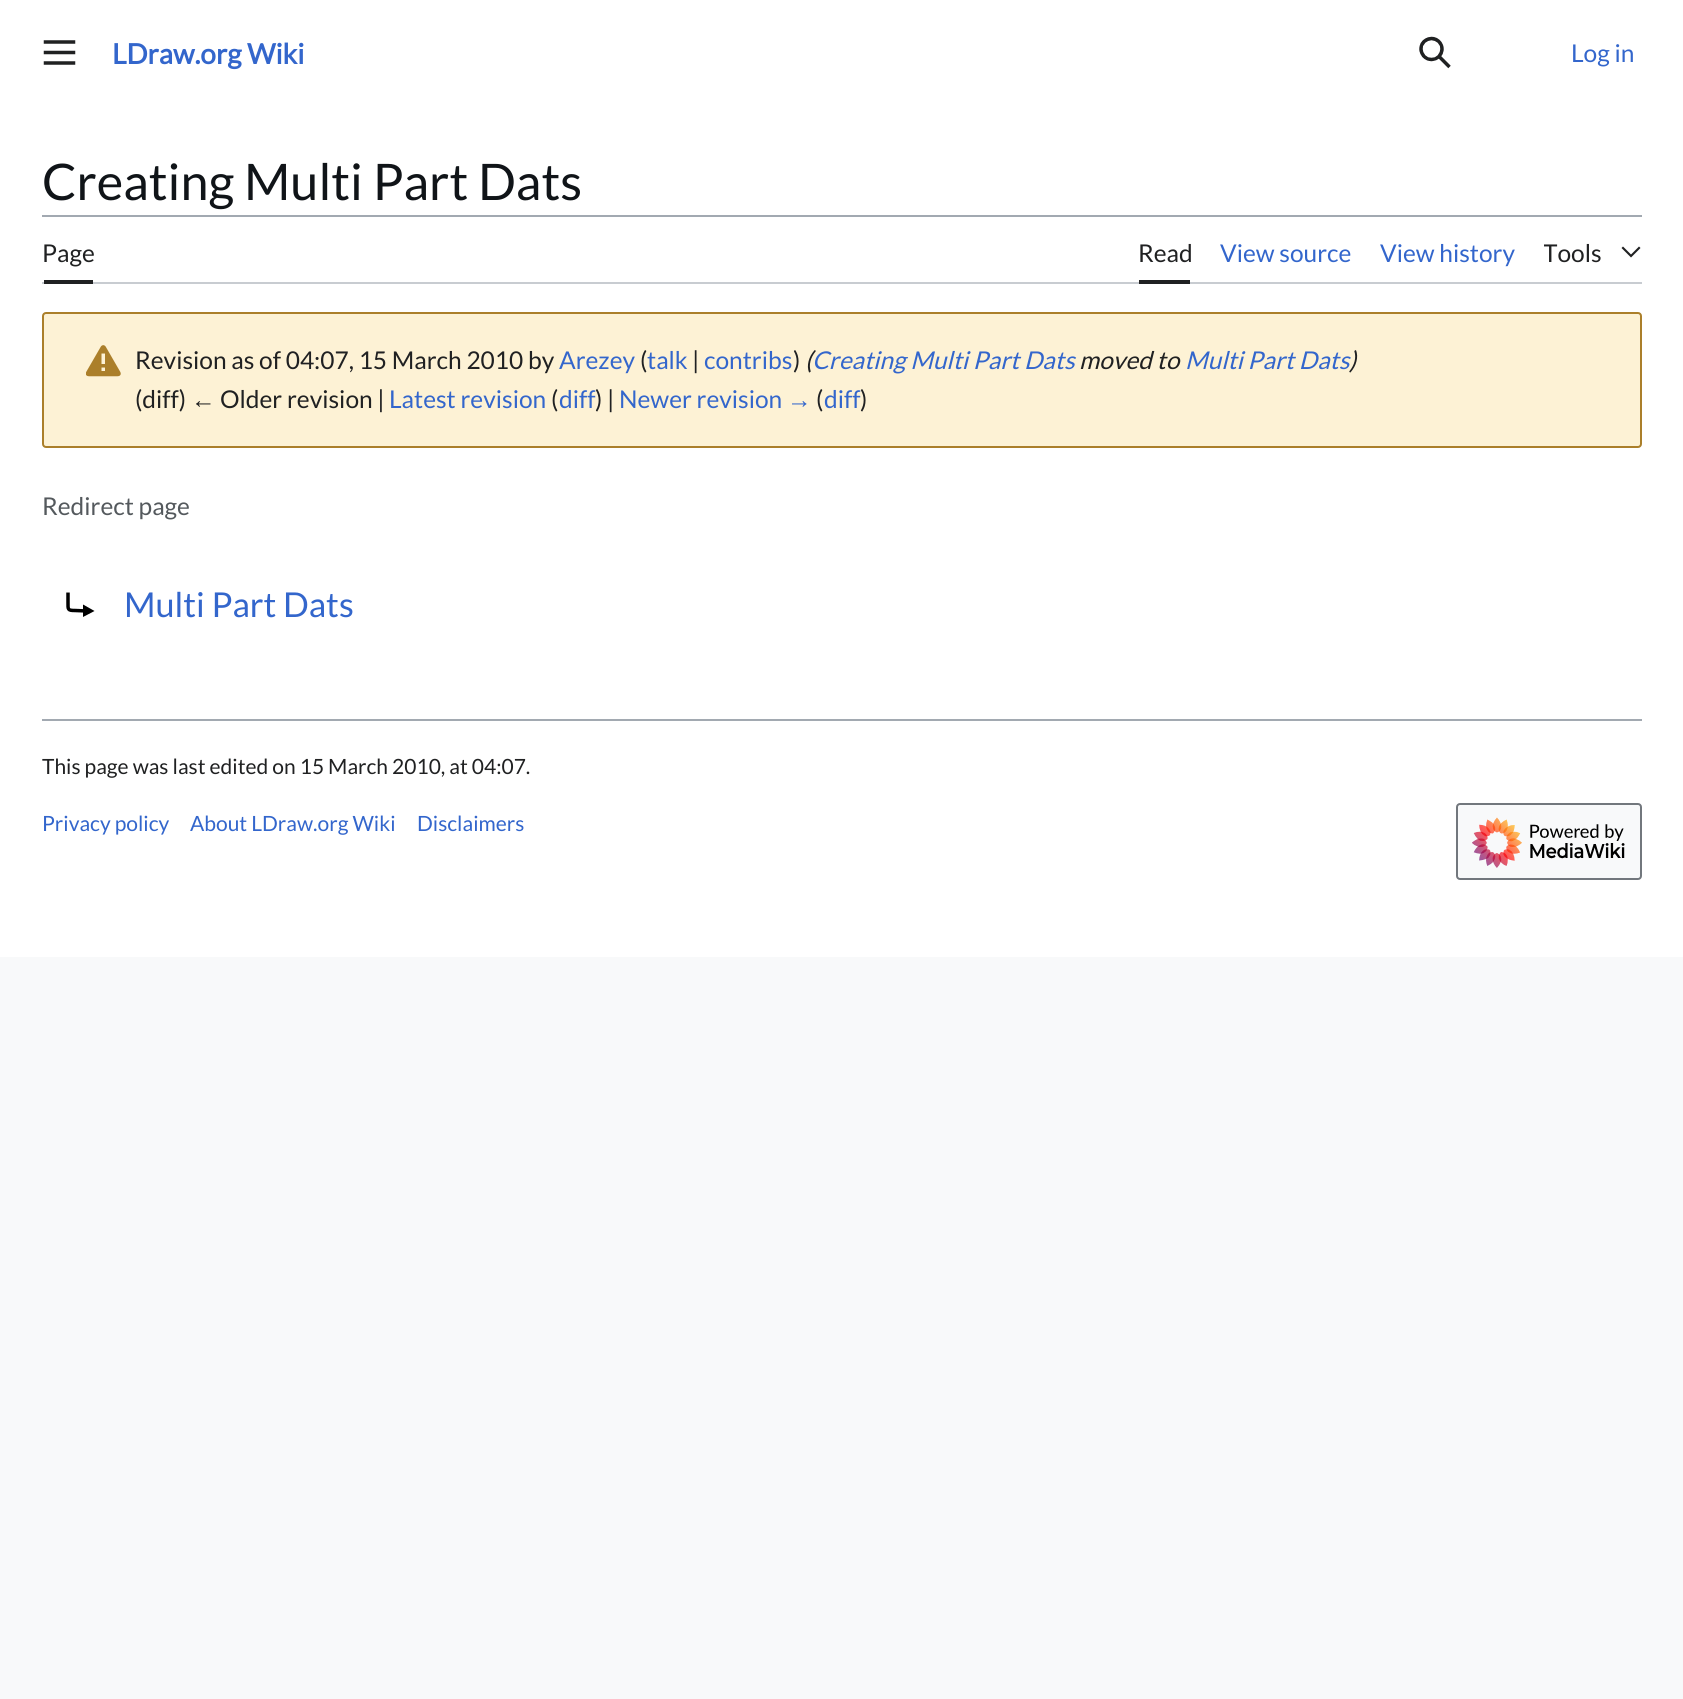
#include <cairo.h>
#include <math.h>
#include <stddef.h>

typedef struct { double x, y; const char *s; } line_t;

static void ink(cairo_t *ctx, unsigned color) {
    cairo_set_source_rgb(ctx, (color >> 16) / 255.0, (color >> 8 & 255) / 255.0, (color & 255) / 255.0);
}

static void round_path(cairo_t *ctx, double x, double y, double w, double h, double r) {
    cairo_new_sub_path(ctx);
    cairo_arc(ctx, x + w - r, y + h - r, r, 0, M_PI / 2);
    cairo_arc(ctx, x + r, y + h - r, r, M_PI / 2, M_PI);
    cairo_arc(ctx, x + r, y + r, r, M_PI, 1.5 * M_PI);
    cairo_arc(ctx, x + w - r, y + r, r, 1.5 * M_PI, 2 * M_PI);
    cairo_close_path(ctx);
}

static void paste(cairo_t *ctx, const char *path, double x, double y, double w, double h) {
    cairo_surface_t *image = cairo_image_surface_create_from_png(path);
    cairo_save(ctx);
    cairo_set_source_surface(ctx, image, x, y);
    cairo_rectangle(ctx, x, y, w, h);
    cairo_fill(ctx);
    cairo_restore(ctx);
    cairo_surface_destroy(image);
}

int main(void) {
    cairo_surface_t *surface = cairo_image_surface_create(CAIRO_FORMAT_RGB24, 1683, 1699);
    cairo_t *ctx = cairo_create(surface);
    cairo_font_options_t *options = cairo_font_options_create();
    cairo_font_options_set_hint_metrics(options, CAIRO_HINT_METRICS_OFF);
    cairo_font_options_set_hint_style(options, CAIRO_HINT_STYLE_NONE);
    cairo_set_font_options(ctx, options);
    cairo_set_miter_limit(ctx, 4);
    ink(ctx, 0xF8F9FA);
    cairo_paint(ctx);
    ink(ctx, 0xFFFFFF);
    cairo_rectangle(ctx, 0, 0, 1683, 957);
    cairo_fill(ctx);
    paste(ctx, "media/1.png", 43, 40, 33, 25);
    cairo_select_font_face(ctx, "Lato", CAIRO_FONT_SLANT_NORMAL, CAIRO_FONT_WEIGHT_BOLD);
    cairo_set_font_size(ctx, 28);
    ink(ctx, 0x3366CC);
    cairo_move_to(ctx, 112, 64);
    cairo_show_text(ctx, "LDraw.org Wiki");
    paste(ctx, "media/2.png", 1419, 36, 32, 33);
    cairo_select_font_face(ctx, "Lato", CAIRO_FONT_SLANT_NORMAL, CAIRO_FONT_WEIGHT_NORMAL);
    cairo_set_font_size(ctx, 24.5);
    cairo_move_to(ctx, 1571, 62);
    cairo_show_text(ctx, "Log in");
    cairo_set_font_size(ctx, 50.4);
    ink(ctx, 0x101418);
    cairo_move_to(ctx, 42, 200);
    cairo_show_text(ctx, "Creating Multi Part Dats");
    ink(ctx, 0xA2A9B1);
    cairo_rectangle(ctx, 42, 215, 1600, 2);
    cairo_fill(ctx);
    ink(ctx, 0xC8CCD1);
    cairo_new_path(ctx);
    cairo_move_to(ctx, 42, 282);
    cairo_line_to(ctx, 42, 284);
    cairo_line_to(ctx, 1642, 284);
    cairo_line_to(ctx, 1642, 219);
    cairo_line_to(ctx, 1642, 282);
    cairo_close_path(ctx);
    cairo_fill(ctx);
    ink(ctx, 0x202122);
    cairo_rectangle(ctx, 44, 280, 49, 4);
    cairo_fill(ctx);
    cairo_set_font_size(ctx, 24.5);
    cairo_move_to(ctx, 42, 262);
    cairo_show_text(ctx, "Page");
    cairo_rectangle(ctx, 1139, 280, 51, 4);
    cairo_fill(ctx);
    cairo_move_to(ctx, 1138, 262);
    cairo_show_text(ctx, "Read");
    ink(ctx, 0x3366CC);
    cairo_move_to(ctx, 1220, 262);
    cairo_show_text(ctx, "View source");
    cairo_move_to(ctx, 1380, 262);
    cairo_show_text(ctx, "View history");
    cairo_save(ctx);
    round_path(ctx, 1544, 217, 98, 63, 4);
    cairo_clip(ctx);
    ink(ctx, 0x202122);
    cairo_move_to(ctx, 1543, 262);
    cairo_show_text(ctx, "Tools");
    cairo_restore(ctx);
    ink(ctx, 0x202122);
    cairo_new_path(ctx);
    cairo_move_to(ctx, 1639, 246.5);
    cairo_line_to(ctx, 1631, 254.5);
    cairo_line_to(ctx, 1623, 246.5);
    cairo_line_to(ctx, 1621.5, 248);
    cairo_line_to(ctx, 1631, 257.5);
    cairo_line_to(ctx, 1640.5, 248);
    cairo_close_path(ctx);
    cairo_fill(ctx);
    ink(ctx, 0xFDF2D5);
    round_path(ctx, 43, 313, 1598, 134, 3);
    cairo_fill_preserve(ctx);
    ink(ctx, 0xAB7F2A);
    cairo_stroke(ctx);
    paste(ctx, "media/3.png", 86, 345, 35, 32);
    ink(ctx, 0x202122);
    cairo_move_to(ctx, 135, 369);
    cairo_show_text(ctx, "Revision as of 04:07, 15 March 2010 by");
    ink(ctx, 0x3366CC);
    cairo_move_to(ctx, 559, 369);
    cairo_show_text(ctx, "Arezey");
    ink(ctx, 0x202122);
    cairo_move_to(ctx, 640, 369);
    cairo_show_text(ctx, "(");
    ink(ctx, 0x3366CC);
    cairo_move_to(ctx, 647, 369);
    cairo_show_text(ctx, "talk");
    ink(ctx, 0x202122);
    cairo_move_to(ctx, 692, 369);
    cairo_show_text(ctx, "|");
    ink(ctx, 0x3366CC);
    cairo_move_to(ctx, 704, 369);
    cairo_show_text(ctx, "contribs");
    ink(ctx, 0x202122);
    cairo_move_to(ctx, 793, 369);
    cairo_show_text(ctx, ")");
    cairo_select_font_face(ctx, "Lato", CAIRO_FONT_SLANT_ITALIC, CAIRO_FONT_WEIGHT_NORMAL);
    cairo_move_to(ctx, 805, 369);
    cairo_show_text(ctx, "(");
    ink(ctx, 0x3366CC);
    cairo_move_to(ctx, 812, 369);
    cairo_show_text(ctx, "Creating Multi Part Dats");
    ink(ctx, 0x202122);
    cairo_move_to(ctx, 1079, 369);
    cairo_show_text(ctx, "moved to");
    ink(ctx, 0x3366CC);
    cairo_move_to(ctx, 1185, 369);
    cairo_show_text(ctx, "Multi Part Dats");
    ink(ctx, 0x202122);
    cairo_move_to(ctx, 1349, 369);
    cairo_show_text(ctx, ")");
    cairo_select_font_face(ctx, "Lato", CAIRO_FONT_SLANT_NORMAL, CAIRO_FONT_WEIGHT_NORMAL);
    cairo_move_to(ctx, 135, 408);
    cairo_show_text(ctx, "(diff)");
    cairo_select_font_face(ctx, "Liberation Sans", CAIRO_FONT_SLANT_NORMAL, CAIRO_FONT_WEIGHT_NORMAL);
    cairo_move_to(ctx, 191, 408);
    cairo_show_text(ctx, "←");
    cairo_select_font_face(ctx, "Lato", CAIRO_FONT_SLANT_NORMAL, CAIRO_FONT_WEIGHT_NORMAL);
    cairo_move_to(ctx, 220, 408);
    cairo_show_text(ctx, "Older revision |");
    ink(ctx, 0x3366CC);
    cairo_move_to(ctx, 389, 408);
    cairo_show_text(ctx, "Latest revision");
    ink(ctx, 0x202122);
    cairo_move_to(ctx, 551, 408);
    cairo_show_text(ctx, "(");
    ink(ctx, 0x3366CC);
    cairo_move_to(ctx, 559, 408);
    cairo_show_text(ctx, "diff");
    ink(ctx, 0x202122);
    cairo_move_to(ctx, 595, 408);
    cairo_show_text(ctx, ") |");
    ink(ctx, 0x3366CC);
    cairo_move_to(ctx, 619, 408);
    cairo_show_text(ctx, "Newer revision");
    cairo_select_font_face(ctx, "Liberation Sans", CAIRO_FONT_SLANT_NORMAL, CAIRO_FONT_WEIGHT_NORMAL);
    cairo_move_to(ctx, 787, 408);
    cairo_show_text(ctx, "→");
    cairo_select_font_face(ctx, "Lato", CAIRO_FONT_SLANT_NORMAL, CAIRO_FONT_WEIGHT_NORMAL);
    ink(ctx, 0x202122);
    cairo_move_to(ctx, 816, 408);
    cairo_show_text(ctx, "(");
    ink(ctx, 0x3366CC);
    cairo_move_to(ctx, 824, 408);
    cairo_show_text(ctx, "diff");
    ink(ctx, 0x202122);
    cairo_move_to(ctx, 860, 408);
    cairo_show_text(ctx, ")");
    ink(ctx, 0x54595D);
    cairo_move_to(ctx, 42, 515);
    cairo_show_text(ctx, "Redirect page");
    cairo_set_font_size(ctx, 34.25);
    ink(ctx, 0x3366CC);
    cairo_move_to(ctx, 124, 617);
    cairo_show_text(ctx, "Multi Part Dats");
    cairo_new_path(ctx);
    cairo_move_to(ctx, 68, 592.5);
    cairo_line_to(ctx, 68, 602.5);
    cairo_curve_to(ctx, 68, 609.5, 67.5, 610.5, 75, 610.5);
    cairo_line_to(ctx, 87.5, 611);
    ink(ctx, 0x000000);
    cairo_set_line_width(ctx, 3.5);
    cairo_stroke(ctx);
    cairo_new_path(ctx);
    cairo_move_to(ctx, 83, 604.5);
    cairo_line_to(ctx, 83, 617);
    cairo_line_to(ctx, 94.5, 611);
    cairo_close_path(ctx);
    cairo_fill(ctx);
    ink(ctx, 0xA2A9B1);
    cairo_rectangle(ctx, 42, 719, 1600, 2);
    cairo_fill(ctx);
    cairo_set_font_size(ctx, 21);
    ink(ctx, 0x202122);
    cairo_move_to(ctx, 42, 774);
    cairo_show_text(ctx, "This page was last edited on 15 March 2010, at 04:07.");
    ink(ctx, 0x3366CC);
    {
        static const line_t items[] = {
            {42, 831, "Privacy policy"},
            {190, 831, "About LDraw.org Wiki"},
            {417, 831, "Disclaimers"},
        };
        for (size_t i = 0; i < sizeof items / sizeof *items; i++) {
            cairo_move_to(ctx, items[i].x, items[i].y);
            cairo_show_text(ctx, items[i].s);
        }
    }
    ink(ctx, 0xF8F9FA);
    round_path(ctx, 1457, 804, 184, 75, 3);
    cairo_fill_preserve(ctx);
    ink(ctx, 0x72777D);
    cairo_set_line_width(ctx, 2);
    cairo_stroke(ctx);
    paste(ctx, "media/4.png", 1472, 817, 153, 51);
    cairo_surface_write_to_png(surface, "image.png");
    cairo_font_options_destroy(options);
    cairo_destroy(ctx);
    cairo_surface_destroy(surface);
    return 0;
}
